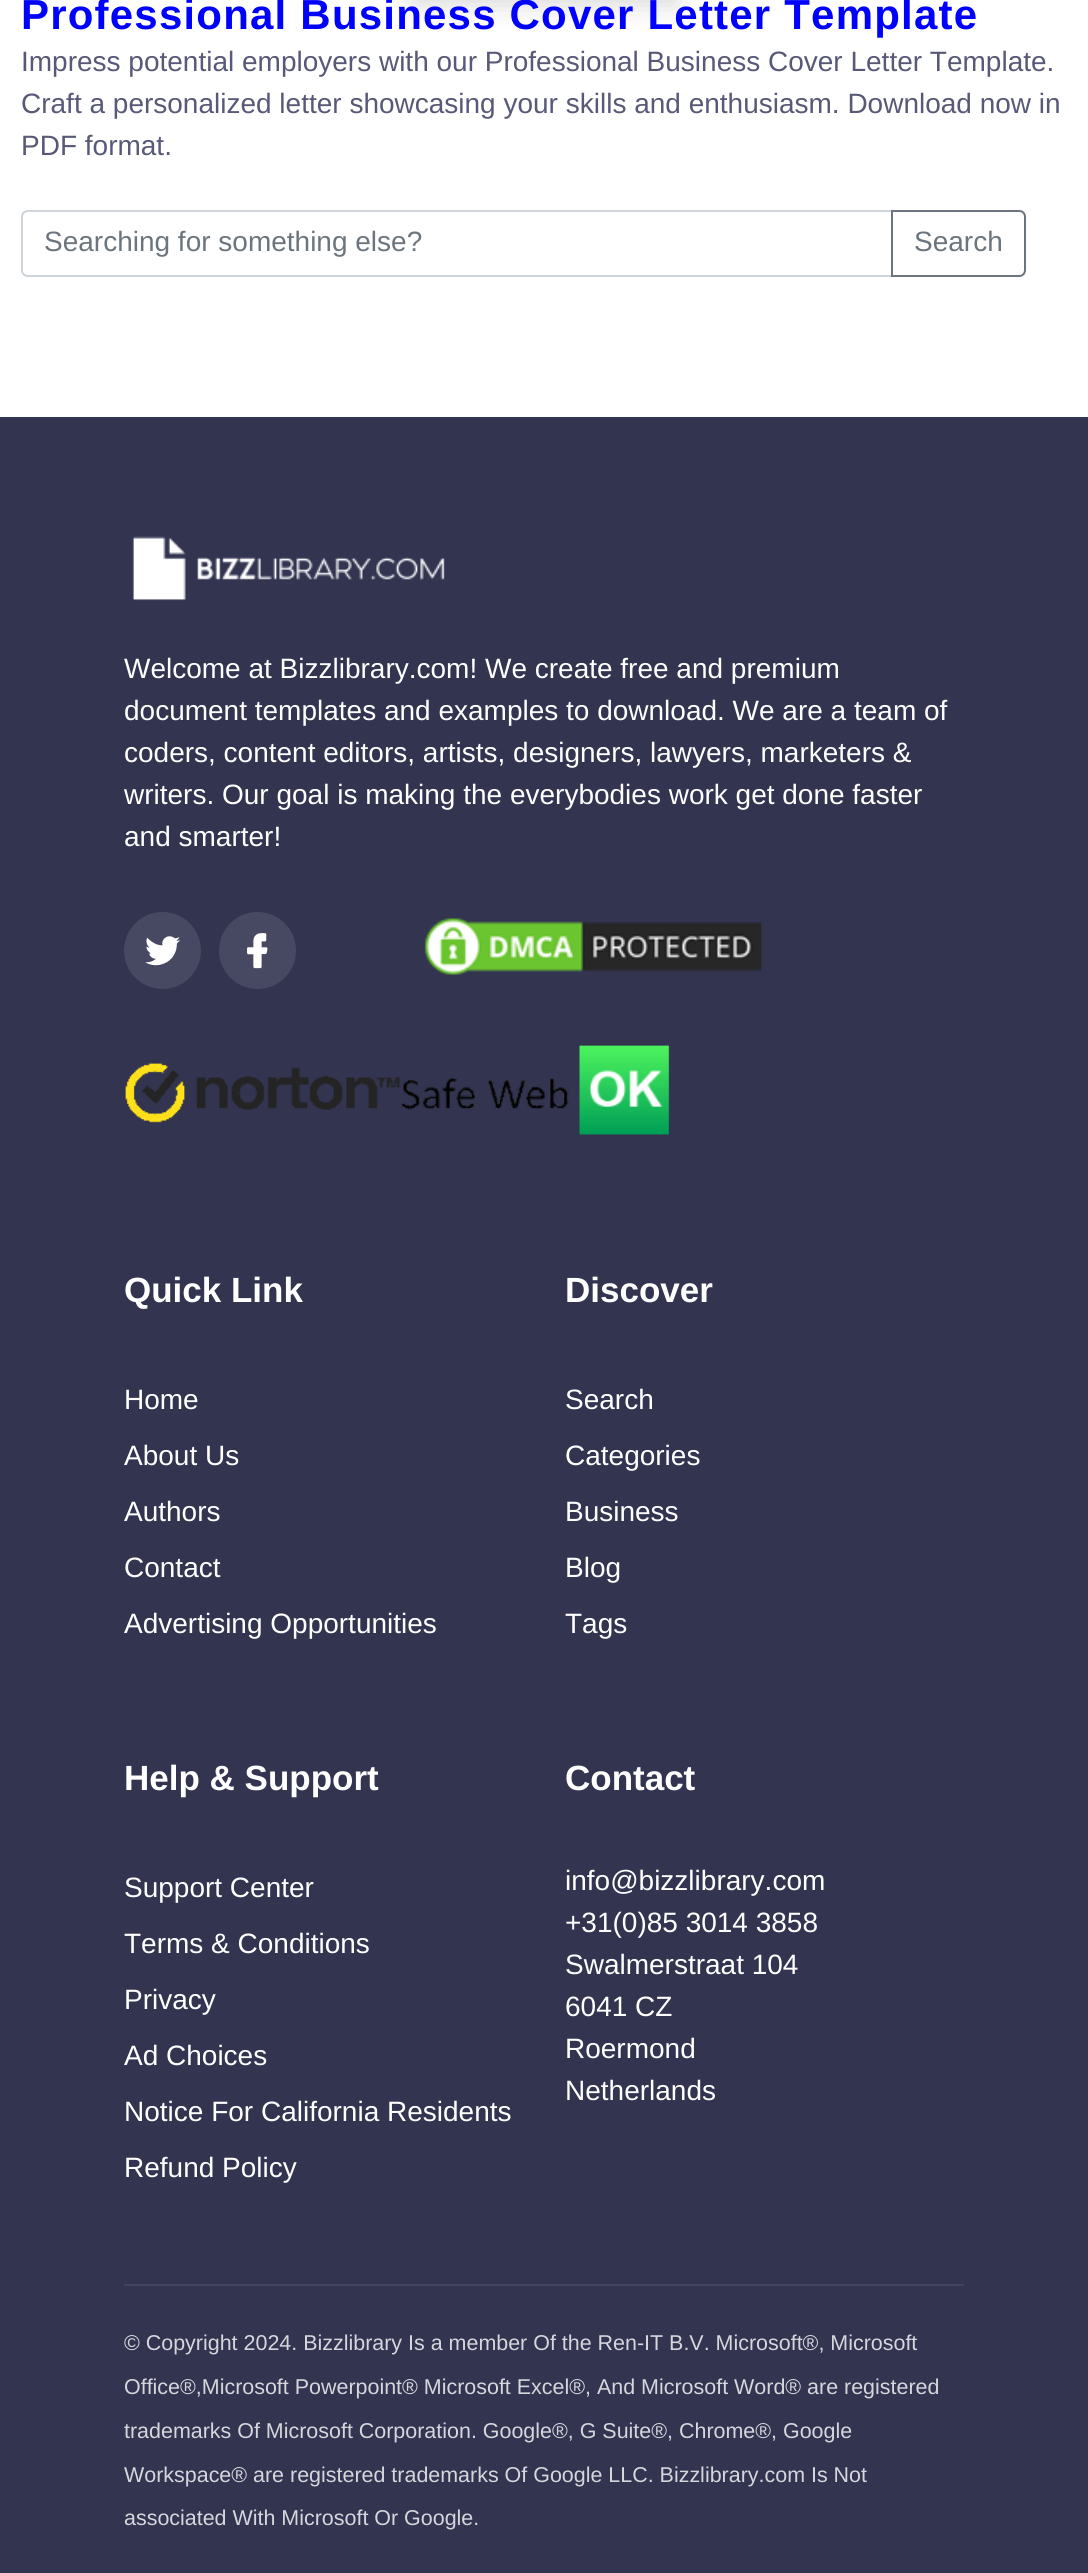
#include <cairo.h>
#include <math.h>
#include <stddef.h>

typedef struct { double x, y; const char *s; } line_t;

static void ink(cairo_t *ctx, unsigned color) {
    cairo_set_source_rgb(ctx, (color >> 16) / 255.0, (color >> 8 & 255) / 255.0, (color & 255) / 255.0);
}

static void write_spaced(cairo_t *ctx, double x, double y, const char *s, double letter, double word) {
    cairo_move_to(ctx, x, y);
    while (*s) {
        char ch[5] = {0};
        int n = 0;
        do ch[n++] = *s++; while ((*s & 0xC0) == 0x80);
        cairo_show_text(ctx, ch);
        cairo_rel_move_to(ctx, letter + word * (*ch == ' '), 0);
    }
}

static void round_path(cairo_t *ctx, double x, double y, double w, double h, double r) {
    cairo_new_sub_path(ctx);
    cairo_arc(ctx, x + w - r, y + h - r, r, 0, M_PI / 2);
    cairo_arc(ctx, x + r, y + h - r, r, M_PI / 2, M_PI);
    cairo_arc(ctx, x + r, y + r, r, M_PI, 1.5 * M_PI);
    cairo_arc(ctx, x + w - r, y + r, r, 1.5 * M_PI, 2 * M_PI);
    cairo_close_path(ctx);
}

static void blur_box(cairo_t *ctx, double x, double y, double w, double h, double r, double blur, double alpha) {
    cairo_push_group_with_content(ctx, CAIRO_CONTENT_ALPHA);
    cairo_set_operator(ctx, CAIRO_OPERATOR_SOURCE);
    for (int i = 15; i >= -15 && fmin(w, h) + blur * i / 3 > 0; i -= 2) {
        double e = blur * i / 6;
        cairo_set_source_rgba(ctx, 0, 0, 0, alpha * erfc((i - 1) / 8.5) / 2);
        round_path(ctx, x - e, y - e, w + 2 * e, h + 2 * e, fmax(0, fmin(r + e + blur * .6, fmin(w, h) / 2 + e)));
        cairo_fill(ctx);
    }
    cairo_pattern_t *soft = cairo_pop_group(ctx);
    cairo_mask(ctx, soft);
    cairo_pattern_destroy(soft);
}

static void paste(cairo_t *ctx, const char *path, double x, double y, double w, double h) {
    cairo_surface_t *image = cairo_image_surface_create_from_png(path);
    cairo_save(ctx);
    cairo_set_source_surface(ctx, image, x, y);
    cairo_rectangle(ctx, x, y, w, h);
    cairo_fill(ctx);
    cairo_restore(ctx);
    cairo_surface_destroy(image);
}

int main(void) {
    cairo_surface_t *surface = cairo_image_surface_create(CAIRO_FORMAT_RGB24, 1088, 2573);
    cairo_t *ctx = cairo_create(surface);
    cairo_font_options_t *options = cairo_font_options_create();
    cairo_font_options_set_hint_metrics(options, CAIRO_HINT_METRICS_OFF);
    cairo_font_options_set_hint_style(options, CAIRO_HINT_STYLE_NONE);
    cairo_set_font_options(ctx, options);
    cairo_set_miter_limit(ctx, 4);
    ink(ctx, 0xFFFFFF);
    cairo_paint(ctx);
    ink(ctx, 0x000000);
    blur_box(ctx, 413, -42, 263, 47, 0, 14, 0.15);
    cairo_select_font_face(ctx, "Liberation Sans", CAIRO_FONT_SLANT_NORMAL, CAIRO_FONT_WEIGHT_BOLD);
    cairo_set_font_size(ctx, 42);
    ink(ctx, 0x0000FF);
    write_spaced(ctx, 21, 29, "Professional Business Cover Letter Template", 1.2, 0);
    cairo_select_font_face(ctx, "Liberation Sans", CAIRO_FONT_SLANT_NORMAL, CAIRO_FONT_WEIGHT_NORMAL);
    cairo_set_font_size(ctx, 28);
    ink(ctx, 0x585978);
    {
        static const line_t items[] = {
            {21, 71, "Impress potential employers with our Professional Business Cover Letter Template."},
            {21, 113, "Craft a personalized letter showcasing your skills and enthusiasm. Download now in"},
            {21, 155, "PDF format."},
        };
        for (size_t i = 0; i < sizeof items / sizeof *items; i++) {
            cairo_move_to(ctx, items[i].x, items[i].y);
            cairo_show_text(ctx, items[i].s);
        }
    }
    cairo_new_path(ctx);
    cairo_move_to(ctx, 28, 211);
    cairo_line_to(ctx, 892, 211);
    cairo_line_to(ctx, 892, 276);
    cairo_line_to(ctx, 28, 276);
    cairo_curve_to(ctx, 24.5, 276, 22, 273.5, 22, 270);
    cairo_line_to(ctx, 22, 217);
    cairo_curve_to(ctx, 22, 213.5, 24.5, 211, 28, 211);
    cairo_close_path(ctx);
    ink(ctx, 0xCED4DA);
    cairo_stroke(ctx);
    ink(ctx, 0x6C757D);
    cairo_move_to(ctx, 44, 251);
    cairo_show_text(ctx, "Searching for something else?");
    cairo_new_path(ctx);
    cairo_move_to(ctx, 892, 211);
    cairo_line_to(ctx, 1019, 211);
    cairo_curve_to(ctx, 1022.5, 211, 1025, 213.5, 1025, 217);
    cairo_line_to(ctx, 1025, 270);
    cairo_curve_to(ctx, 1025, 273.5, 1022.5, 276, 1019, 276);
    cairo_line_to(ctx, 892, 276);
    cairo_close_path(ctx);
    cairo_stroke(ctx);
    cairo_move_to(ctx, 914, 251);
    cairo_show_text(ctx, "Search");
    ink(ctx, 0x323450);
    cairo_rectangle(ctx, 0, 417, 1088, 2156);
    cairo_fill(ctx);
    paste(ctx, "media/1.png", 132, 536, 313, 65);
    ink(ctx, 0xFFFFFF);
    {
        static const line_t items[] = {
            {124, 678, "Welcome at Bizzlibrary.com! We create free and premium"},
            {124, 720, "document templates and examples to download. We are a team of"},
            {124, 762, "coders, content editors, artists, designers, lawyers, marketers &"},
            {124, 804, "writers. Our goal is making the everybodies work get done faster"},
            {124, 846, "and smarter!"},
        };
        for (size_t i = 0; i < sizeof items / sizeof *items; i++) {
            cairo_move_to(ctx, items[i].x, items[i].y);
            cairo_show_text(ctx, items[i].s);
        }
    }
    ink(ctx, 0x474862);
    cairo_new_path(ctx);
    cairo_arc(ctx, 162.5, 950.5, 38.5, 0, 2 * M_PI);
    cairo_fill(ctx);
    paste(ctx, "media/2.png", 145, 936, 35, 30);
    cairo_arc(ctx, 257.5, 950.5, 38.5, 0, 2 * M_PI);
    cairo_fill(ctx);
    paste(ctx, "media/3.png", 247, 933, 21, 36);
    paste(ctx, "media/4.png", 424, 918, 338, 57);
    paste(ctx, "media/5.png", 125, 1045, 545, 90);
    cairo_select_font_face(ctx, "Liberation Sans", CAIRO_FONT_SLANT_NORMAL, CAIRO_FONT_WEIGHT_BOLD);
    cairo_set_font_size(ctx, 35);
    ink(ctx, 0xFFFFFF);
    cairo_move_to(ctx, 124, 1302);
    cairo_show_text(ctx, "Quick Link");
    cairo_select_font_face(ctx, "Liberation Sans", CAIRO_FONT_SLANT_NORMAL, CAIRO_FONT_WEIGHT_NORMAL);
    cairo_set_font_size(ctx, 28);
    {
        static const line_t items[] = {
            {124, 1409, "Home"},
            {124, 1465, "About Us"},
            {124, 1521, "Authors"},
            {124, 1577, "Contact"},
            {124, 1633, "Advertising Opportunities"},
        };
        for (size_t i = 0; i < sizeof items / sizeof *items; i++) {
            cairo_move_to(ctx, items[i].x, items[i].y);
            cairo_show_text(ctx, items[i].s);
        }
    }
    cairo_select_font_face(ctx, "Liberation Sans", CAIRO_FONT_SLANT_NORMAL, CAIRO_FONT_WEIGHT_BOLD);
    cairo_set_font_size(ctx, 35);
    cairo_move_to(ctx, 565, 1302);
    cairo_show_text(ctx, "Discover");
    cairo_select_font_face(ctx, "Liberation Sans", CAIRO_FONT_SLANT_NORMAL, CAIRO_FONT_WEIGHT_NORMAL);
    cairo_set_font_size(ctx, 28);
    {
        static const line_t items[] = {
            {565, 1409, "Search"},
            {565, 1465, "Categories"},
            {565, 1521, "Business"},
            {565, 1577, "Blog"},
            {565, 1633, "Tags"},
        };
        for (size_t i = 0; i < sizeof items / sizeof *items; i++) {
            cairo_move_to(ctx, items[i].x, items[i].y);
            cairo_show_text(ctx, items[i].s);
        }
    }
    cairo_select_font_face(ctx, "Liberation Sans", CAIRO_FONT_SLANT_NORMAL, CAIRO_FONT_WEIGHT_BOLD);
    cairo_set_font_size(ctx, 35);
    cairo_move_to(ctx, 124, 1790);
    cairo_show_text(ctx, "Help & Support");
    cairo_select_font_face(ctx, "Liberation Sans", CAIRO_FONT_SLANT_NORMAL, CAIRO_FONT_WEIGHT_NORMAL);
    cairo_set_font_size(ctx, 28);
    {
        static const line_t items[] = {
            {124, 1897, "Support Center"},
            {124, 1953, "Terms & Conditions"},
            {124, 2009, "Privacy"},
            {124, 2065, "Ad Choices"},
            {124, 2121, "Notice For California Residents"},
            {124, 2177, "Refund Policy"},
        };
        for (size_t i = 0; i < sizeof items / sizeof *items; i++) {
            cairo_move_to(ctx, items[i].x, items[i].y);
            cairo_show_text(ctx, items[i].s);
        }
    }
    cairo_select_font_face(ctx, "Liberation Sans", CAIRO_FONT_SLANT_NORMAL, CAIRO_FONT_WEIGHT_BOLD);
    cairo_set_font_size(ctx, 35);
    cairo_move_to(ctx, 565, 1790);
    cairo_show_text(ctx, "Contact");
    cairo_select_font_face(ctx, "Liberation Sans", CAIRO_FONT_SLANT_NORMAL, CAIRO_FONT_WEIGHT_NORMAL);
    cairo_set_font_size(ctx, 28);
    {
        static const line_t items[] = {
            {565, 1890, "info@bizzlibrary.com"},
            {565, 1932, "+31(0)85 3014 3858"},
            {565, 1974, "Swalmerstraat 104"},
            {565, 2016, "6041 CZ"},
            {565, 2058, "Roermond"},
            {565, 2100, "Netherlands"},
        };
        for (size_t i = 0; i < sizeof items / sizeof *items; i++) {
            cairo_move_to(ctx, items[i].x, items[i].y);
            cairo_show_text(ctx, items[i].s);
        }
    }
    ink(ctx, 0x414360);
    cairo_rectangle(ctx, 124, 2284, 840, 2);
    cairo_fill(ctx);
    cairo_set_font_size(ctx, 21.45);
    ink(ctx, 0xD6D6DC);
    {
        static const line_t items[] = {
            {124, 2350, "© Copyright 2024. Bizzlibrary Is a member Of the Ren-IT B.V. Microsoft®, Microsoft"},
            {124, 2394, "Office®,Microsoft Powerpoint® Microsoft Excel®, And Microsoft Word® are registered"},
            {124, 2438, "trademarks Of Microsoft Corporation. Google®, G Suite®, Chrome®, Google"},
            {124, 2482, "Workspace® are registered trademarks Of Google LLC. Bizzlibrary.com Is Not"},
            {124, 2525, "associated With Microsoft Or Google."},
        };
        for (size_t i = 0; i < sizeof items / sizeof *items; i++) {
            cairo_move_to(ctx, items[i].x, items[i].y);
            cairo_show_text(ctx, items[i].s);
        }
    }
    cairo_surface_write_to_png(surface, "image.png");
    cairo_font_options_destroy(options);
    cairo_destroy(ctx);
    cairo_surface_destroy(surface);
    return 0;
}
